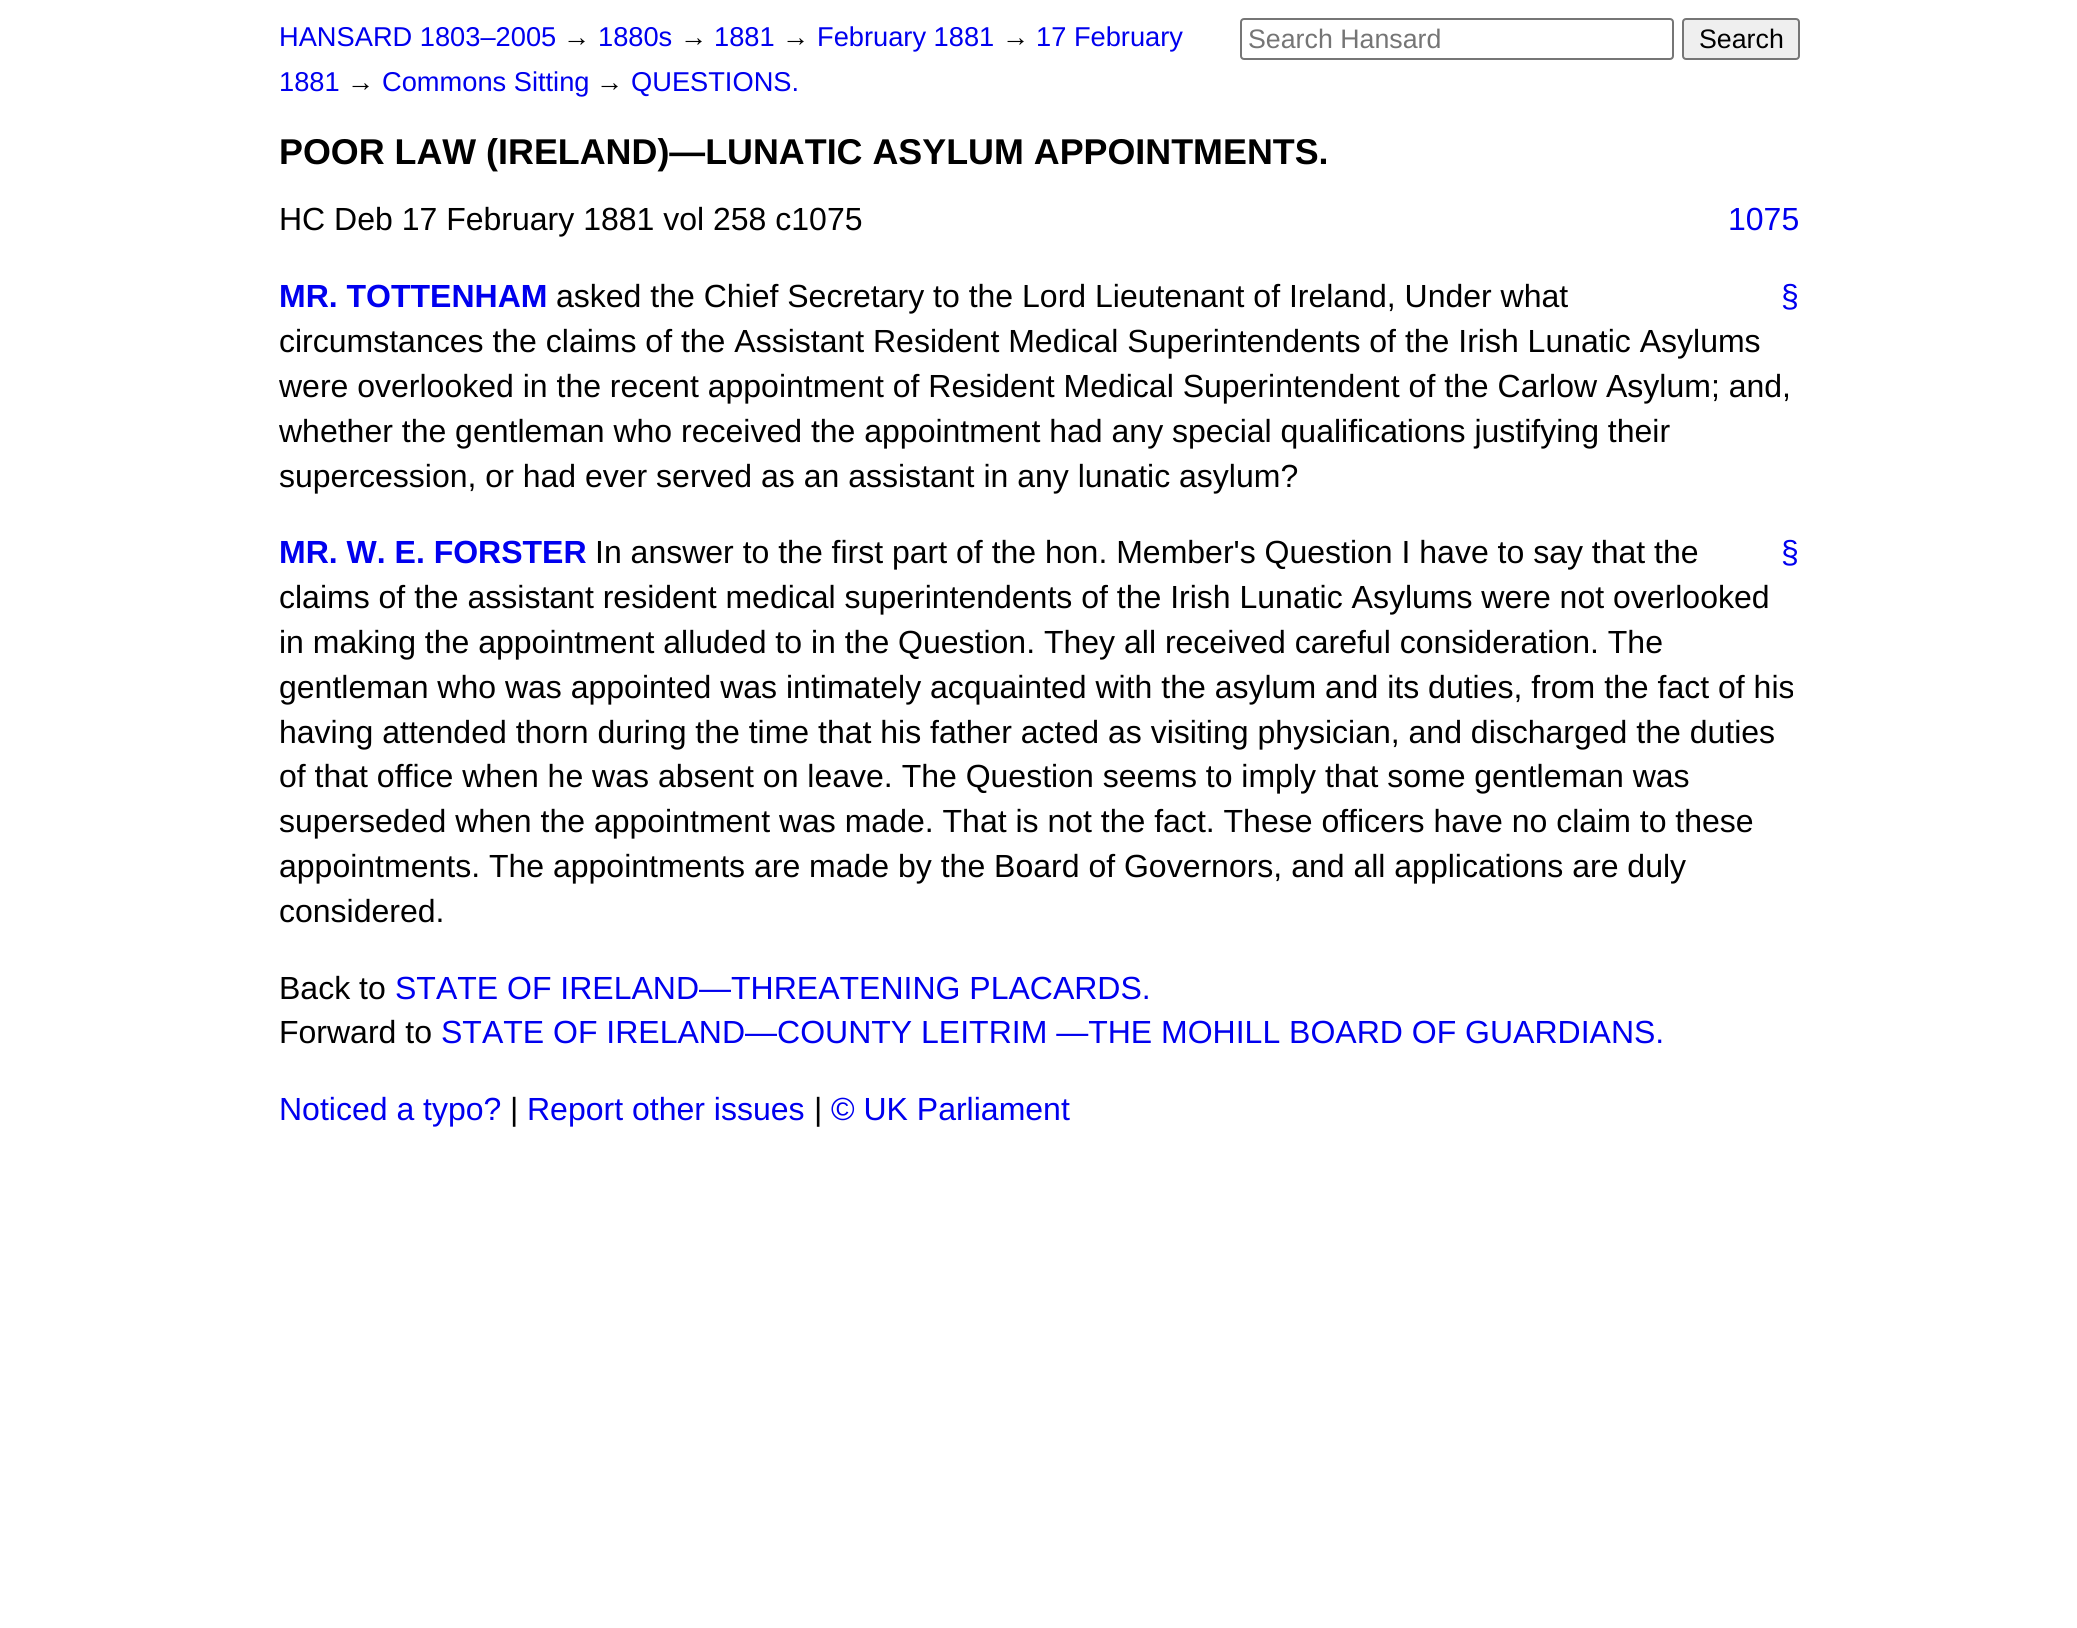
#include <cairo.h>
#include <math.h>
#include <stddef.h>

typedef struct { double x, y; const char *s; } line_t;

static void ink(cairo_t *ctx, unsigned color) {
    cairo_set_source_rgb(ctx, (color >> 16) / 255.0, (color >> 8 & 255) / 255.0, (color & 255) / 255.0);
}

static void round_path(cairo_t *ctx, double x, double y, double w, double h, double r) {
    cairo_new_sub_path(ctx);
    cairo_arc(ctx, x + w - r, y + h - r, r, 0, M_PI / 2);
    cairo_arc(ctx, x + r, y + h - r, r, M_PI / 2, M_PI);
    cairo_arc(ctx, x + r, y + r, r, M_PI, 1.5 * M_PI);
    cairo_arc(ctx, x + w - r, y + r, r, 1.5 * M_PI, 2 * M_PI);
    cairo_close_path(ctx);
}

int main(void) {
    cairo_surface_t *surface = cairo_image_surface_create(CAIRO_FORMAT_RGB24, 2077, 1628);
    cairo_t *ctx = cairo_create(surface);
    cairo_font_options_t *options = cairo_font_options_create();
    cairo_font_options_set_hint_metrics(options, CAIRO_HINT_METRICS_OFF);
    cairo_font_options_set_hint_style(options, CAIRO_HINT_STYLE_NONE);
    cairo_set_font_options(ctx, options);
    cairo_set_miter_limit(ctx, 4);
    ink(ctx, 0xFFFFFF);
    cairo_paint(ctx);
    cairo_select_font_face(ctx, "Liberation Sans", CAIRO_FONT_SLANT_NORMAL, CAIRO_FONT_WEIGHT_NORMAL);
    cairo_set_font_size(ctx, 27.25);
    ink(ctx, 0x0000EE);
    cairo_move_to(ctx, 279, 46);
    cairo_show_text(ctx, "HANSARD 1803–2005");
    ink(ctx, 0x000000);
    cairo_move_to(ctx, 563, 46);
    cairo_show_text(ctx, "→");
    ink(ctx, 0x0000EE);
    cairo_move_to(ctx, 598, 46);
    cairo_show_text(ctx, "1880s");
    ink(ctx, 0x000000);
    cairo_move_to(ctx, 680, 46);
    cairo_show_text(ctx, "→");
    ink(ctx, 0x0000EE);
    cairo_move_to(ctx, 714, 46);
    cairo_show_text(ctx, "1881");
    ink(ctx, 0x000000);
    cairo_move_to(ctx, 782, 46);
    cairo_show_text(ctx, "→");
    ink(ctx, 0x0000EE);
    cairo_move_to(ctx, 817, 46);
    cairo_show_text(ctx, "February 1881");
    ink(ctx, 0x000000);
    cairo_move_to(ctx, 1002, 46);
    cairo_show_text(ctx, "→");
    ink(ctx, 0x0000EE);
    cairo_move_to(ctx, 1036, 46);
    cairo_show_text(ctx, "17 February");
    cairo_move_to(ctx, 279, 91);
    cairo_show_text(ctx, "1881");
    ink(ctx, 0x000000);
    cairo_move_to(ctx, 347, 91);
    cairo_show_text(ctx, "→");
    ink(ctx, 0x0000EE);
    cairo_move_to(ctx, 382, 91);
    cairo_show_text(ctx, "Commons Sitting");
    ink(ctx, 0x000000);
    cairo_move_to(ctx, 596, 91);
    cairo_show_text(ctx, "→");
    ink(ctx, 0x0000EE);
    cairo_move_to(ctx, 631, 91);
    cairo_show_text(ctx, "QUESTIONS.");
    round_path(ctx, 1241, 19, 432, 40, 3);
    ink(ctx, 0x767676);
    cairo_stroke(ctx);
    cairo_set_font_size(ctx, 26.75);
    ink(ctx, 0x757575);
    cairo_move_to(ctx, 1248, 48);
    cairo_show_text(ctx, "Search Hansard");
    ink(ctx, 0xEFEFEF);
    round_path(ctx, 1683, 19, 116, 40, 3);
    cairo_fill_preserve(ctx);
    ink(ctx, 0x767676);
    cairo_stroke(ctx);
    ink(ctx, 0x000000);
    cairo_move_to(ctx, 1699, 48);
    cairo_show_text(ctx, "Search");
    cairo_select_font_face(ctx, "Liberation Sans", CAIRO_FONT_SLANT_NORMAL, CAIRO_FONT_WEIGHT_BOLD);
    cairo_set_font_size(ctx, 35.85);
    cairo_move_to(ctx, 279, 164);
    cairo_show_text(ctx, "POOR LAW (IRELAND)—LUNATIC ASYLUM APPOINTMENTS.");
    cairo_select_font_face(ctx, "Liberation Sans", CAIRO_FONT_SLANT_NORMAL, CAIRO_FONT_WEIGHT_NORMAL);
    cairo_set_font_size(ctx, 32);
    cairo_move_to(ctx, 279, 230);
    cairo_show_text(ctx, "HC Deb 17 February 1881 vol 258 c1075");
    ink(ctx, 0x0000EE);
    cairo_move_to(ctx, 1728, 230);
    cairo_show_text(ctx, "1075");
    cairo_select_font_face(ctx, "Liberation Sans", CAIRO_FONT_SLANT_NORMAL, CAIRO_FONT_WEIGHT_BOLD);
    cairo_move_to(ctx, 279, 307);
    cairo_show_text(ctx, "MR. TOTTENHAM");
    cairo_select_font_face(ctx, "Liberation Sans", CAIRO_FONT_SLANT_NORMAL, CAIRO_FONT_WEIGHT_NORMAL);
    ink(ctx, 0x000000);
    cairo_move_to(ctx, 556, 307);
    cairo_show_text(ctx, "asked the Chief Secretary to the Lord Lieutenant of Ireland, Under what");
    ink(ctx, 0x0000EE);
    cairo_move_to(ctx, 1781, 307);
    cairo_show_text(ctx, "§");
    ink(ctx, 0x000000);
    {
        static const line_t items[] = {
            {279, 352, "circumstances the claims of the Assistant Resident Medical Superintendents of the Irish Lunatic Asylums"},
            {279, 397, "were overlooked in the recent appointment of Resident Medical Superintendent of the Carlow Asylum; and,"},
            {279, 442, "whether the gentleman who received the appointment had any special qualifications justifying their"},
            {279, 487, "supercession, or had ever served as an assistant in any lunatic asylum?"},
        };
        for (size_t i = 0; i < sizeof items / sizeof *items; i++) {
            cairo_move_to(ctx, items[i].x, items[i].y);
            cairo_show_text(ctx, items[i].s);
        }
    }
    cairo_select_font_face(ctx, "Liberation Sans", CAIRO_FONT_SLANT_NORMAL, CAIRO_FONT_WEIGHT_BOLD);
    ink(ctx, 0x0000EE);
    cairo_move_to(ctx, 279, 563);
    cairo_show_text(ctx, "MR. W. E. FORSTER");
    cairo_select_font_face(ctx, "Liberation Sans", CAIRO_FONT_SLANT_NORMAL, CAIRO_FONT_WEIGHT_NORMAL);
    ink(ctx, 0x000000);
    cairo_move_to(ctx, 595, 563);
    cairo_show_text(ctx, "In answer to the first part of the hon. Member's Question I have to say that the");
    ink(ctx, 0x0000EE);
    cairo_move_to(ctx, 1781, 563);
    cairo_show_text(ctx, "§");
    ink(ctx, 0x000000);
    {
        static const line_t items[] = {
            {279, 608, "claims of the assistant resident medical superintendents of the Irish Lunatic Asylums were not overlooked"},
            {279, 653, "in making the appointment alluded to in the Question. They all received careful consideration. The"},
            {279, 698, "gentleman who was appointed was intimately acquainted with the asylum and its duties, from the fact of his"},
            {279, 743, "having attended thorn during the time that his father acted as visiting physician, and discharged the duties"},
            {279, 787, "of that office when he was absent on leave. The Question seems to imply that some gentleman was"},
            {279, 832, "superseded when the appointment was made. That is not the fact. These officers have no claim to these"},
            {279, 877, "appointments. The appointments are made by the Board of Governors, and all applications are duly"},
            {279, 922, "considered."},
            {279, 999, "Back to"},
        };
        for (size_t i = 0; i < sizeof items / sizeof *items; i++) {
            cairo_move_to(ctx, items[i].x, items[i].y);
            cairo_show_text(ctx, items[i].s);
        }
    }
    ink(ctx, 0x0000EE);
    cairo_move_to(ctx, 395, 999);
    cairo_show_text(ctx, "STATE OF IRELAND—THREATENING PLACARDS.");
    ink(ctx, 0x000000);
    cairo_move_to(ctx, 279, 1043);
    cairo_show_text(ctx, "Forward to");
    ink(ctx, 0x0000EE);
    cairo_move_to(ctx, 441, 1043);
    cairo_show_text(ctx, "STATE OF IRELAND—COUNTY LEITRIM —THE MOHILL BOARD OF GUARDIANS.");
    cairo_move_to(ctx, 279, 1120);
    cairo_show_text(ctx, "Noticed a typo?");
    ink(ctx, 0x000000);
    cairo_move_to(ctx, 510, 1120);
    cairo_show_text(ctx, "|");
    ink(ctx, 0x0000EE);
    cairo_move_to(ctx, 527, 1120);
    cairo_show_text(ctx, "Report other issues");
    ink(ctx, 0x000000);
    cairo_move_to(ctx, 814, 1120);
    cairo_show_text(ctx, "|");
    ink(ctx, 0x0000EE);
    cairo_move_to(ctx, 831, 1120);
    cairo_show_text(ctx, "© UK Parliament");
    cairo_surface_write_to_png(surface, "image.png");
    cairo_font_options_destroy(options);
    cairo_destroy(ctx);
    cairo_surface_destroy(surface);
    return 0;
}
